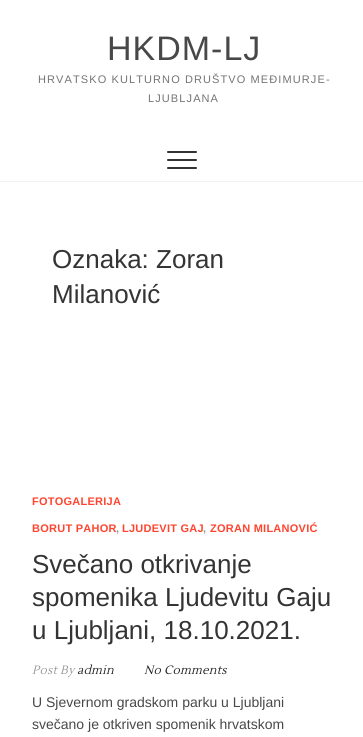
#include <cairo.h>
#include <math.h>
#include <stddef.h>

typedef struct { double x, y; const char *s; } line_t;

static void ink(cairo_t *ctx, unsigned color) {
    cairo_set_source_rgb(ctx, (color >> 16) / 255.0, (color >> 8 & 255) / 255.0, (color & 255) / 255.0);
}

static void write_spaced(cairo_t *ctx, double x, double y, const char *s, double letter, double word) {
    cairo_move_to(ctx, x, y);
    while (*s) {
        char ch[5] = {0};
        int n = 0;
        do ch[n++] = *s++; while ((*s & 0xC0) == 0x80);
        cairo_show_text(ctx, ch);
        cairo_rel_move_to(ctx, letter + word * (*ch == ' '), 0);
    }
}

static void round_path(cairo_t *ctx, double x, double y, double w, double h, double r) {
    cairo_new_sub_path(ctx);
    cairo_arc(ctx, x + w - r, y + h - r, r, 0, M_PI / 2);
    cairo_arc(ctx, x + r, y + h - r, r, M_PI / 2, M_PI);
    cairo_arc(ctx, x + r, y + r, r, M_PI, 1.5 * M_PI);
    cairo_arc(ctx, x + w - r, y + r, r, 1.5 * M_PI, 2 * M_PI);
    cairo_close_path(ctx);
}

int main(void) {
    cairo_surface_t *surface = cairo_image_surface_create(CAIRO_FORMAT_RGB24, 363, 737);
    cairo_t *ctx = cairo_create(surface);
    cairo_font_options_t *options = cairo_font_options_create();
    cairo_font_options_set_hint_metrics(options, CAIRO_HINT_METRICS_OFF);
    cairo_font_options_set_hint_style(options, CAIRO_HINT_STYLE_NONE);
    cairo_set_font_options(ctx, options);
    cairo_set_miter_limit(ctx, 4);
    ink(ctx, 0xFFFFFF);
    cairo_paint(ctx);
    ink(ctx, 0xF2F2F2);
    cairo_rectangle(ctx, 0, 181, 363, 1);
    cairo_fill(ctx);
    cairo_select_font_face(ctx, "Liberation Sans", CAIRO_FONT_SLANT_NORMAL, CAIRO_FONT_WEIGHT_NORMAL);
    cairo_set_font_size(ctx, 34);
    ink(ctx, 0x484848);
    write_spaced(ctx, 107, 60, "HKDM-LJ", 1, 0);
    cairo_set_font_size(ctx, 11);
    ink(ctx, 0x747474);
    write_spaced(ctx, 38, 83, "HRVATSKO KULTURNO DRUŠTVO MEĐIMURJE-", 1.1, 0);
    write_spaced(ctx, 148, 102, "LJUBLJANA", 1.1, 0);
    ink(ctx, 0x333333);
    round_path(ctx, 167, 159, 30, 2, 1);
    cairo_fill(ctx);
    round_path(ctx, 167, 151, 30, 2, 1);
    cairo_fill(ctx);
    round_path(ctx, 167, 167, 30, 2, 1);
    cairo_fill(ctx);
    cairo_set_font_size(ctx, 26);
    ink(ctx, 0x343434);
    cairo_move_to(ctx, 52, 268);
    cairo_show_text(ctx, "Oznaka: Zoran");
    cairo_move_to(ctx, 52, 303);
    cairo_show_text(ctx, "Milanović");
    cairo_select_font_face(ctx, "Liberation Sans", CAIRO_FONT_SLANT_NORMAL, CAIRO_FONT_WEIGHT_BOLD);
    cairo_set_font_size(ctx, 11);
    ink(ctx, 0xFF4530);
    write_spaced(ctx, 32, 505, "FOTOGALERIJA", 0.25, 0);
    write_spaced(ctx, 32, 532, "BORUT PAHOR", 0.25, 0);
    ink(ctx, 0x999999);
    write_spaced(ctx, 116, 532, ",", 0.25, 0);
    ink(ctx, 0xFF4530);
    write_spaced(ctx, 122, 532, "LJUDEVIT GAJ", 0.25, 0);
    ink(ctx, 0x999999);
    write_spaced(ctx, 203, 532, ",", 0.25, 0);
    ink(ctx, 0xFF4530);
    write_spaced(ctx, 210, 532, "ZORAN MILANOVIĆ", 0.25, 0);
    cairo_select_font_face(ctx, "Liberation Sans", CAIRO_FONT_SLANT_NORMAL, CAIRO_FONT_WEIGHT_NORMAL);
    cairo_set_font_size(ctx, 26);
    ink(ctx, 0x343434);
    {
        static const line_t items[] = {
            {32, 573, "Svečano otkrivanje"},
            {32, 606, "spomenika Ljudevitu Gaju"},
            {32, 639, "u Ljubljani, 18.10.2021."},
        };
        for (size_t i = 0; i < sizeof items / sizeof *items; i++) {
            cairo_move_to(ctx, items[i].x, items[i].y);
            cairo_show_text(ctx, items[i].s);
        }
    }
    cairo_select_font_face(ctx, "Lustria", CAIRO_FONT_SLANT_ITALIC, CAIRO_FONT_WEIGHT_NORMAL);
    cairo_set_font_size(ctx, 12);
    ink(ctx, 0x999999);
    write_spaced(ctx, 32, 674, "Post By", 0.25, 0);
    ink(ctx, 0x222222);
    write_spaced(ctx, 77, 674, "admin", 0.25, 0);
    write_spaced(ctx, 144, 674, "No Comments", 0.25, 0);
    cairo_select_font_face(ctx, "Liberation Sans", CAIRO_FONT_SLANT_NORMAL, CAIRO_FONT_WEIGHT_NORMAL);
    cairo_set_font_size(ctx, 14);
    ink(ctx, 0x484848);
    cairo_move_to(ctx, 32, 707);
    cairo_show_text(ctx, "U Sjevernom gradskom parku u Ljubljani");
    cairo_move_to(ctx, 32, 729);
    cairo_show_text(ctx, "svečano je otkriven spomenik hrvatskom");
    cairo_surface_write_to_png(surface, "image.png");
    cairo_font_options_destroy(options);
    cairo_destroy(ctx);
    cairo_surface_destroy(surface);
    return 0;
}
